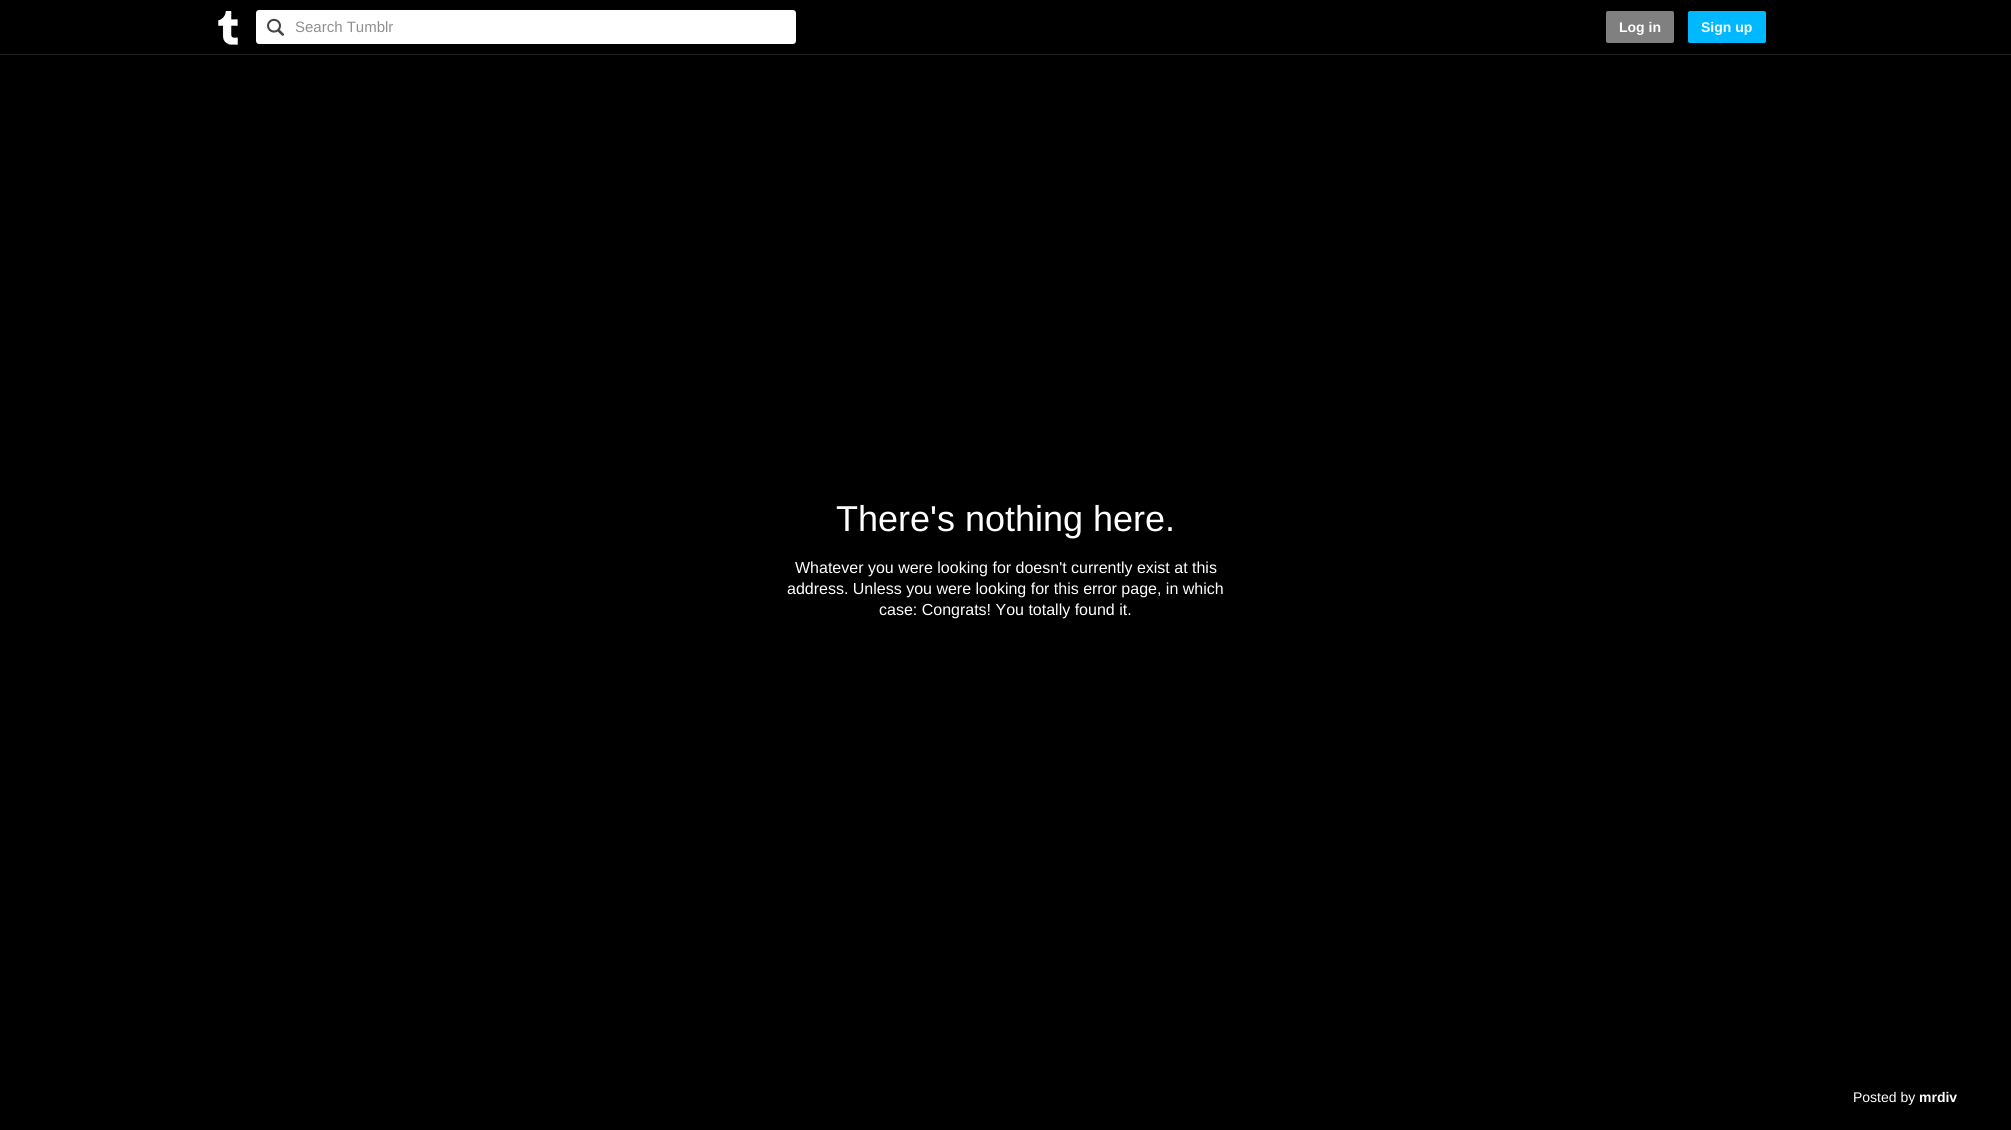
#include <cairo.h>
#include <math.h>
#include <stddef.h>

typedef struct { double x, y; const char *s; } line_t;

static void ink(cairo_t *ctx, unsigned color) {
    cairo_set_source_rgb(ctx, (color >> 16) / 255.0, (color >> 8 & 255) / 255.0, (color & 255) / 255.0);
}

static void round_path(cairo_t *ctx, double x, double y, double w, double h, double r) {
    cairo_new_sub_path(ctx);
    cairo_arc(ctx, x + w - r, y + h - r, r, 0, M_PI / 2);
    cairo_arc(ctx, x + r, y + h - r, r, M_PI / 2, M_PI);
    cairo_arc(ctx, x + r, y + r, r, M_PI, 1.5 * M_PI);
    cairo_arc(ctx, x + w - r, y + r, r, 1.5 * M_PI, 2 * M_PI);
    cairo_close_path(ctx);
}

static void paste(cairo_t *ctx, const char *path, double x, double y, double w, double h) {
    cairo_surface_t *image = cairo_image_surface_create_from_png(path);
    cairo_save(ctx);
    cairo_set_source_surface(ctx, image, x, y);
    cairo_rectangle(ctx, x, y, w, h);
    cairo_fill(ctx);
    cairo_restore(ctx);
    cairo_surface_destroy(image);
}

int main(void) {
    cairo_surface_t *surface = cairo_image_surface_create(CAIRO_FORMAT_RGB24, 2011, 1130);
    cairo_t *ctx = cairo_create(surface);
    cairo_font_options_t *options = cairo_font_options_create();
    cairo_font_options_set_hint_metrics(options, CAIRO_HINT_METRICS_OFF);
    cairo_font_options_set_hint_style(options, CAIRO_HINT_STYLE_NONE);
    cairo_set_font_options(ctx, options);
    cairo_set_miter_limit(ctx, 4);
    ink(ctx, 0x000000);
    cairo_paint(ctx);
    ink(ctx, 0x212121);
    cairo_rectangle(ctx, 0, 54, 2011, 1);
    cairo_fill(ctx);
    paste(ctx, "media/1.png", 218, 11, 20, 34);
    ink(ctx, 0xFFFFFF);
    round_path(ctx, 256, 10, 540, 34, 3);
    cairo_fill(ctx);
    paste(ctx, "media/2.png", 267, 18, 18, 18);
    cairo_select_font_face(ctx, "Liberation Sans", CAIRO_FONT_SLANT_NORMAL, CAIRO_FONT_WEIGHT_NORMAL);
    cairo_set_font_size(ctx, 15);
    ink(ctx, 0x8F8F8F);
    cairo_move_to(ctx, 295, 32);
    cairo_show_text(ctx, "Search Tumblr");
    ink(ctx, 0x808080);
    round_path(ctx, 1606, 11, 68, 32, 2);
    cairo_fill(ctx);
    cairo_select_font_face(ctx, "Liberation Sans", CAIRO_FONT_SLANT_NORMAL, CAIRO_FONT_WEIGHT_BOLD);
    cairo_set_font_size(ctx, 14);
    ink(ctx, 0xFFFFFF);
    cairo_move_to(ctx, 1619, 32);
    cairo_show_text(ctx, "Log in");
    ink(ctx, 0x00B8FF);
    round_path(ctx, 1688.5, 11.5, 77, 31, 1.5);
    cairo_fill_preserve(ctx);
    cairo_set_line_width(ctx, 1);
    cairo_stroke(ctx);
    ink(ctx, 0xFFFFFF);
    cairo_move_to(ctx, 1701, 32);
    cairo_show_text(ctx, "Sign up");
    cairo_select_font_face(ctx, "Liberation Sans", CAIRO_FONT_SLANT_NORMAL, CAIRO_FONT_WEIGHT_NORMAL);
    cairo_set_font_size(ctx, 36);
    cairo_move_to(ctx, 836, 531);
    cairo_show_text(ctx, "There's nothing here.");
    cairo_set_font_size(ctx, 16);
    {
        static const line_t items[] = {
            {795, 573, "Whatever you were looking for doesn't currently exist at this"},
            {787, 594, "address. Unless you were looking for this error page, in which"},
            {879, 615, "case: Congrats! You totally found it."},
        };
        for (size_t i = 0; i < sizeof items / sizeof *items; i++) {
            cairo_move_to(ctx, items[i].x, items[i].y);
            cairo_show_text(ctx, items[i].s);
        }
    }
    cairo_set_font_size(ctx, 14);
    cairo_move_to(ctx, 1853, 1102);
    cairo_show_text(ctx, "Posted by");
    cairo_select_font_face(ctx, "Liberation Sans", CAIRO_FONT_SLANT_NORMAL, CAIRO_FONT_WEIGHT_BOLD);
    cairo_move_to(ctx, 1919, 1102);
    cairo_show_text(ctx, "mrdiv");
    cairo_surface_write_to_png(surface, "image.png");
    cairo_font_options_destroy(options);
    cairo_destroy(ctx);
    cairo_surface_destroy(surface);
    return 0;
}
